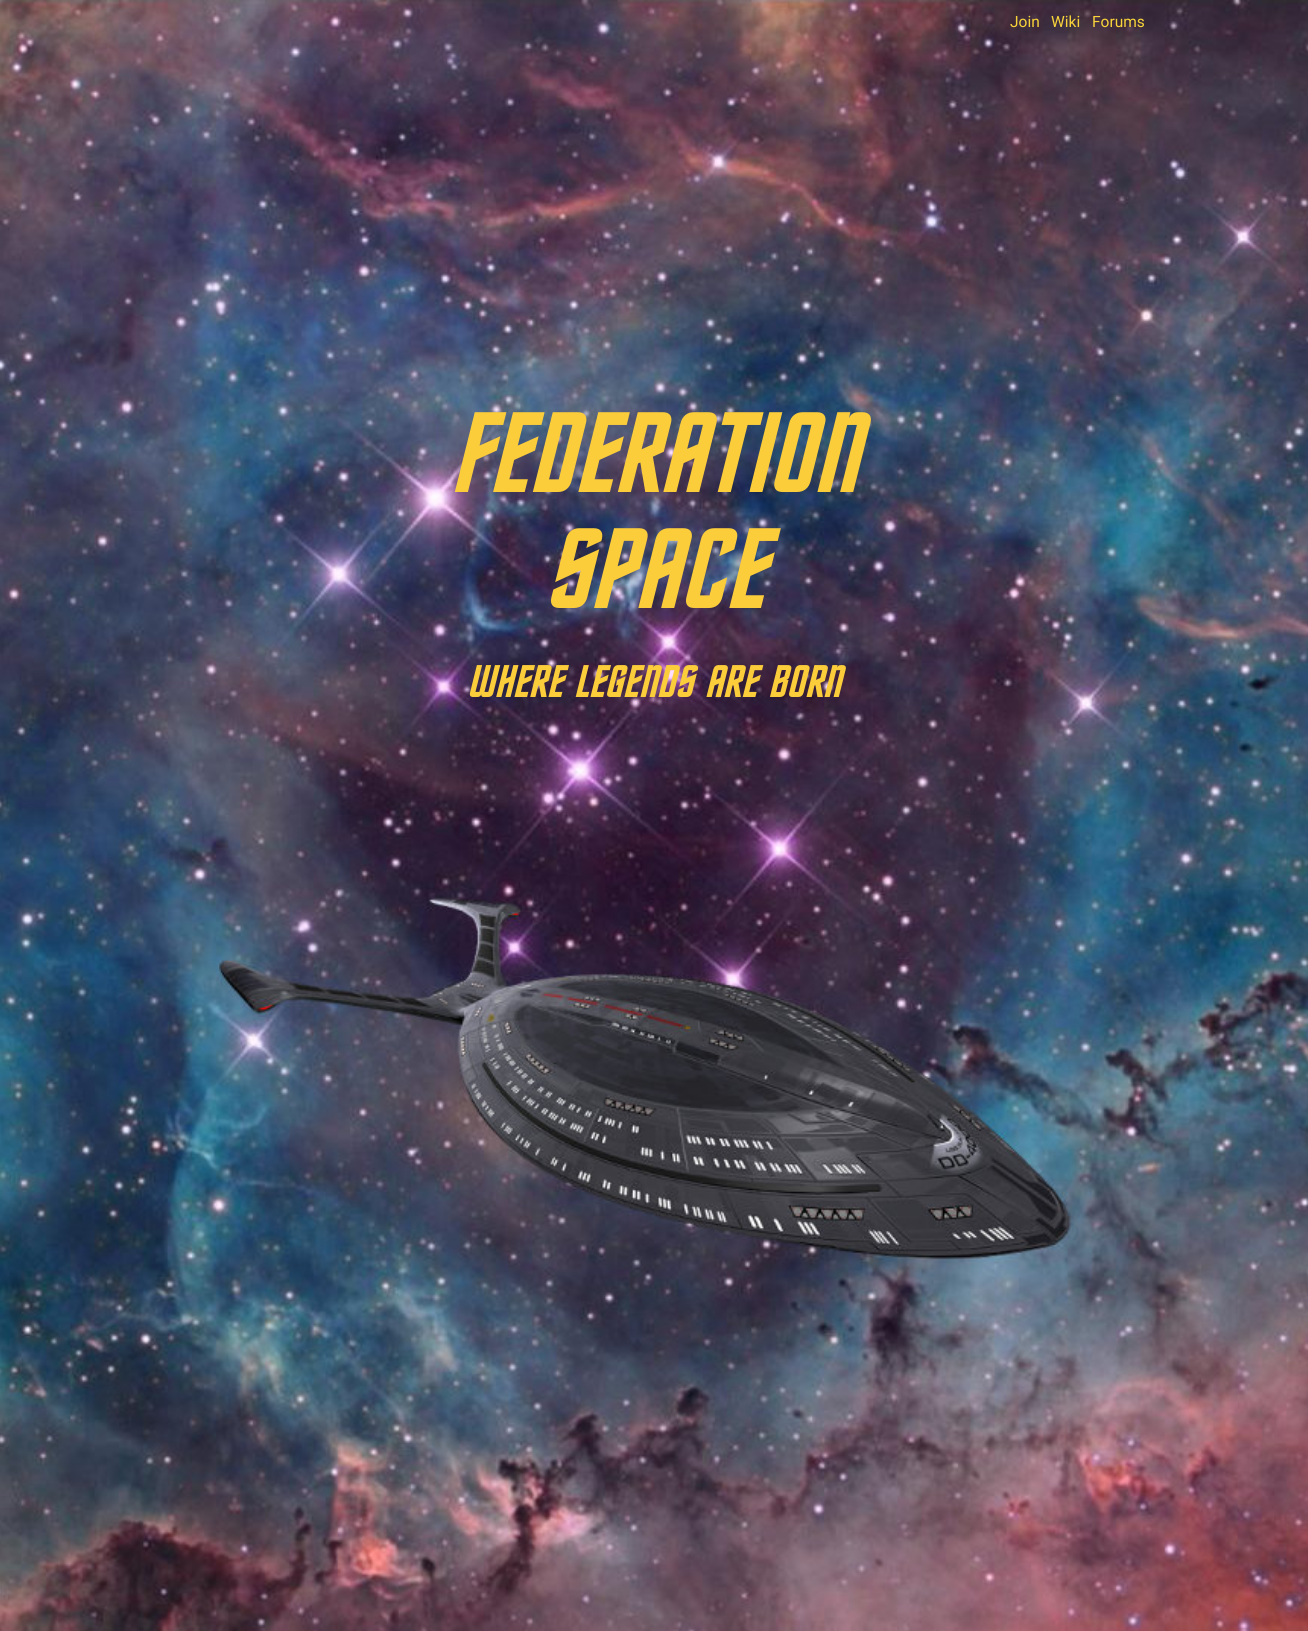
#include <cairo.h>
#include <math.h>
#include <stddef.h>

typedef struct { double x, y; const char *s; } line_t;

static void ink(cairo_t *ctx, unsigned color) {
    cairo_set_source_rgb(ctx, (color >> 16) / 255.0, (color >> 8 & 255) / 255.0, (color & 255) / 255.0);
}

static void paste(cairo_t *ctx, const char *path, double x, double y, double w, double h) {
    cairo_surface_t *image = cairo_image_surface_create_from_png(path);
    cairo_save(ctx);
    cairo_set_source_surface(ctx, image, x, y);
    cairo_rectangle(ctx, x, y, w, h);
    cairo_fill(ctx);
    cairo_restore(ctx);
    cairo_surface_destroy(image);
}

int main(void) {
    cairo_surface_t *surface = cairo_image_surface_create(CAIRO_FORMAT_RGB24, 1308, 1631);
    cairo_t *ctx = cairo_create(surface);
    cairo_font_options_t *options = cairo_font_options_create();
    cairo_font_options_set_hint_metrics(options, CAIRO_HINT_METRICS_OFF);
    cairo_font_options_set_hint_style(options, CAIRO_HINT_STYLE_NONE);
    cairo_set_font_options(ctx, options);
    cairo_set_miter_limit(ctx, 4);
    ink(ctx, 0xFFFFFF);
    cairo_paint(ctx);
    paste(ctx, "media/1.png", 0, 0, 1308, 1631);
    cairo_select_font_face(ctx, "Roboto", CAIRO_FONT_SLANT_NORMAL, CAIRO_FONT_WEIGHT_NORMAL);
    cairo_set_font_size(ctx, 15.5);
    ink(ctx, 0xF8D43A);
    {
        static const line_t items[] = {
            {1010, 27, "Join"},
            {1051, 27, "Wiki"},
            {1092, 27, "Forums"},
        };
        for (size_t i = 0; i < sizeof items / sizeof *items; i++) {
            cairo_move_to(ctx, items[i].x, items[i].y);
            cairo_show_text(ctx, items[i].s);
        }
    }
    cairo_select_font_face(ctx, "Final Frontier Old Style", CAIRO_FONT_SLANT_ITALIC, CAIRO_FONT_WEIGHT_NORMAL);
    cairo_set_font_size(ctx, 115);
    ink(ctx, 0xFCCD3B);
    cairo_move_to(ctx, 450, 492);
    cairo_show_text(ctx, "FEDERATION");
    cairo_move_to(ctx, 544, 608);
    cairo_show_text(ctx, "SPACE");
    cairo_set_font_size(ctx, 46);
    cairo_move_to(ctx, 467, 697);
    cairo_show_text(ctx, "WHERE LEGENDS ARE BORN");
    cairo_surface_write_to_png(surface, "image.png");
    cairo_font_options_destroy(options);
    cairo_destroy(ctx);
    cairo_surface_destroy(surface);
    return 0;
}
